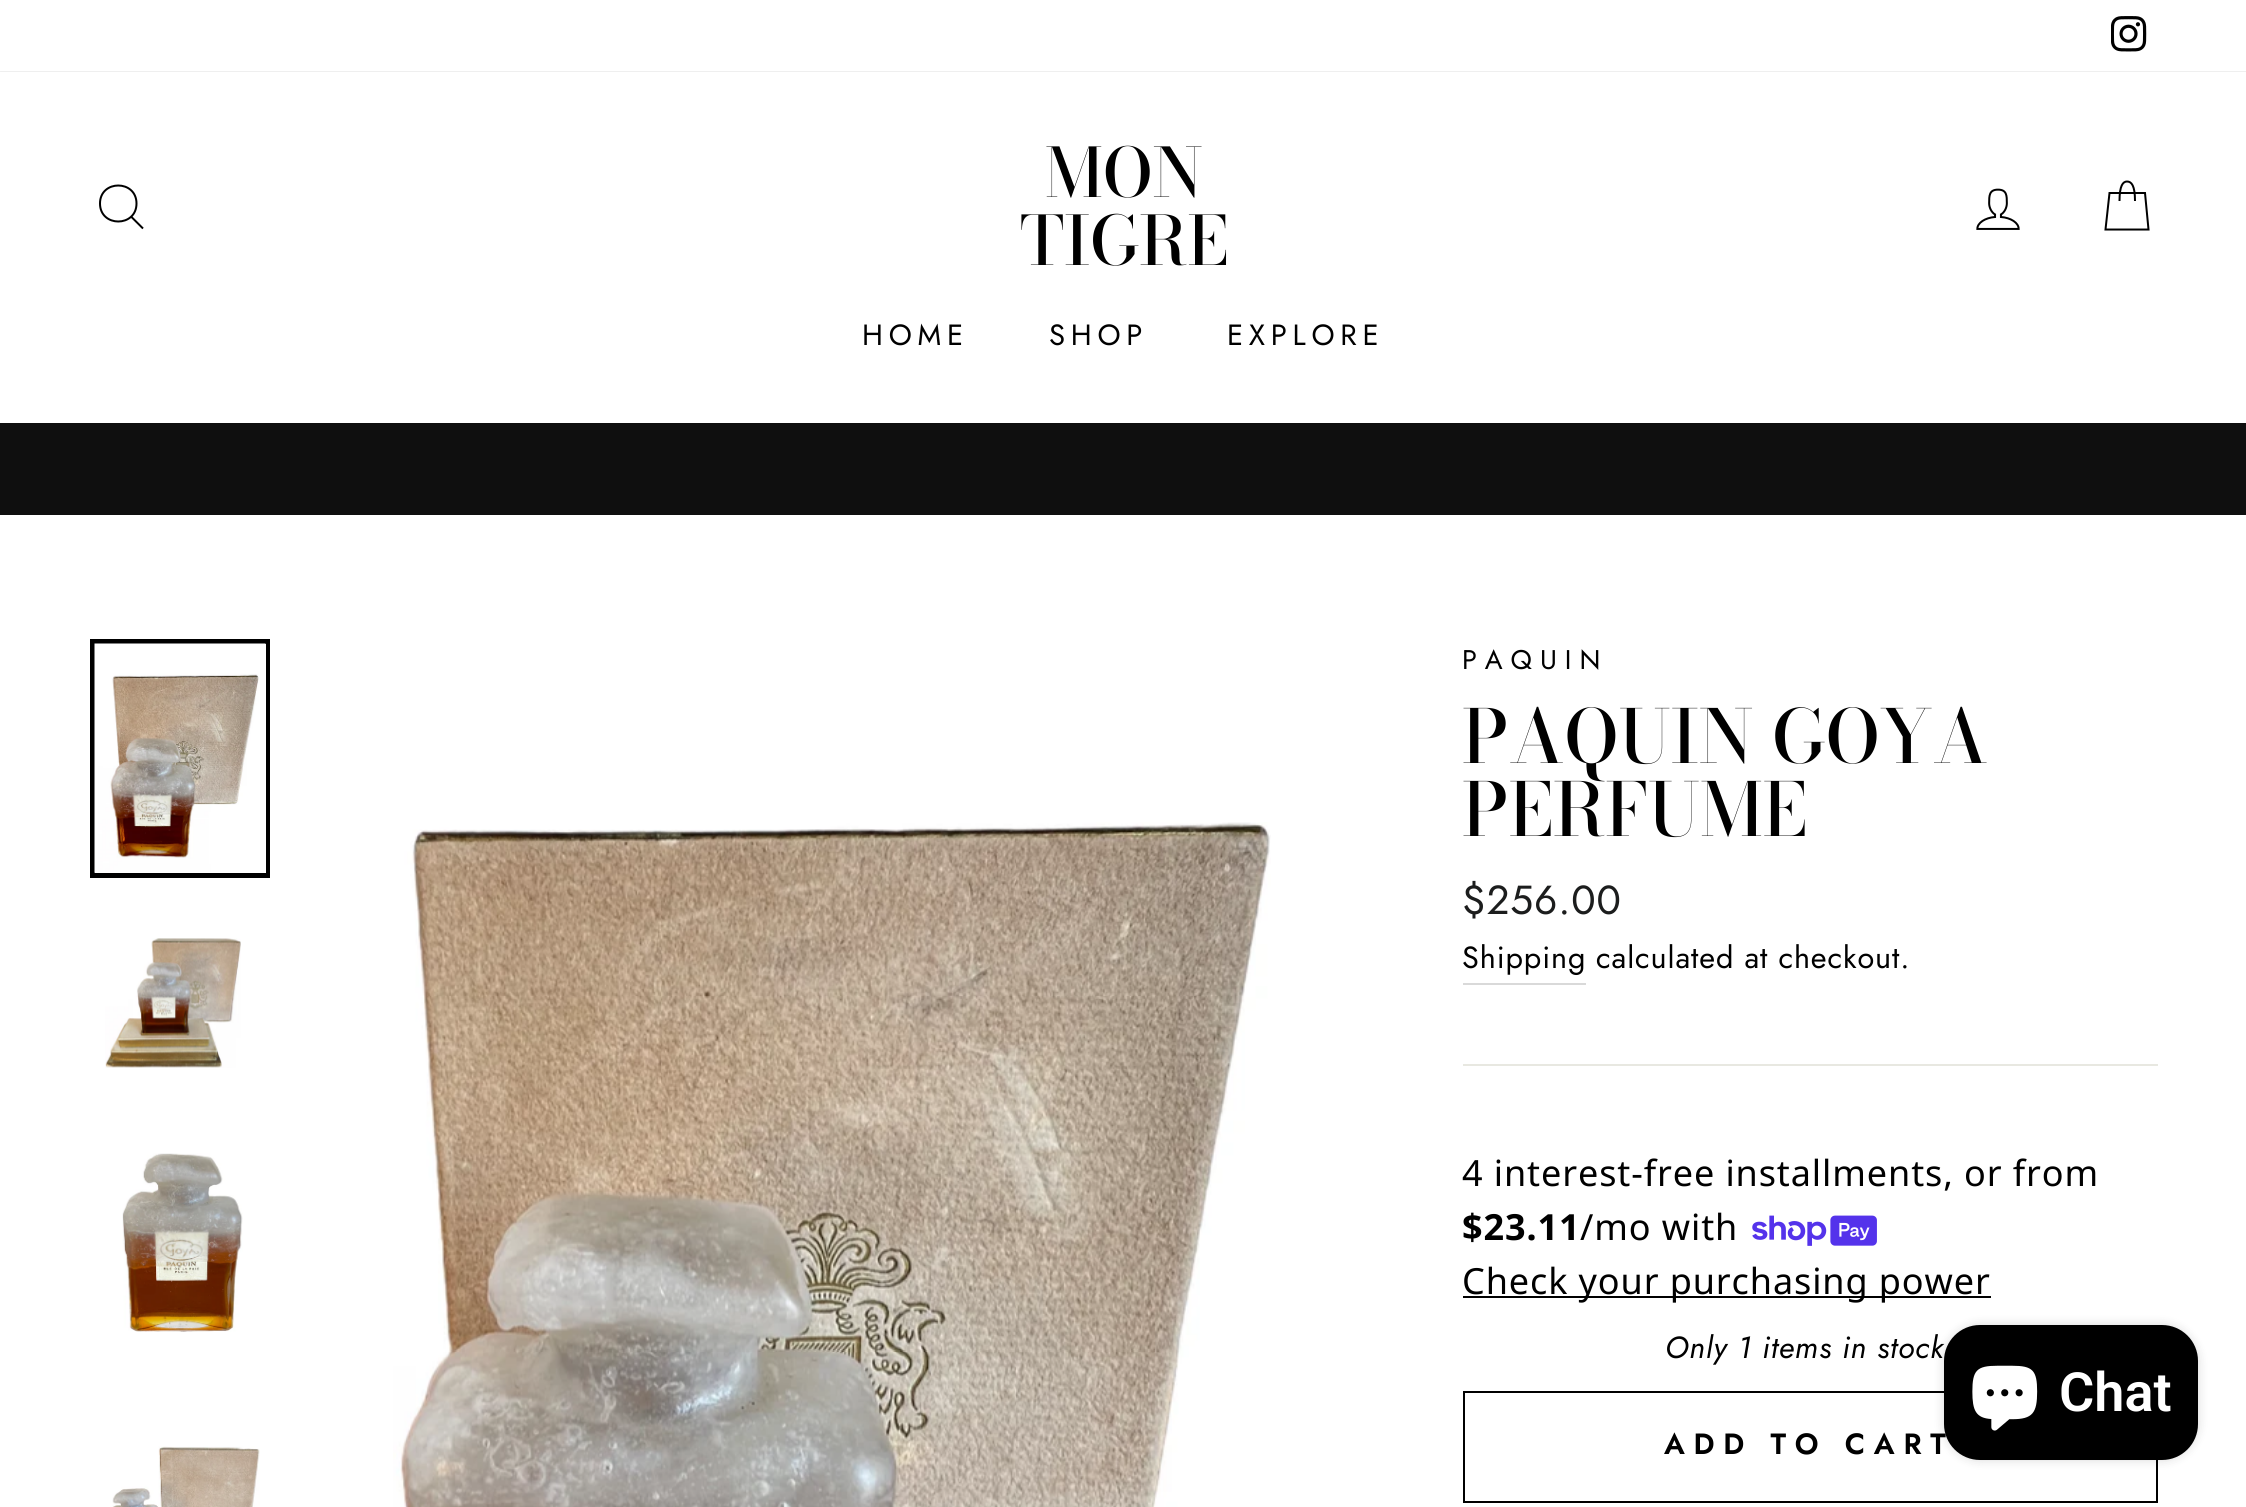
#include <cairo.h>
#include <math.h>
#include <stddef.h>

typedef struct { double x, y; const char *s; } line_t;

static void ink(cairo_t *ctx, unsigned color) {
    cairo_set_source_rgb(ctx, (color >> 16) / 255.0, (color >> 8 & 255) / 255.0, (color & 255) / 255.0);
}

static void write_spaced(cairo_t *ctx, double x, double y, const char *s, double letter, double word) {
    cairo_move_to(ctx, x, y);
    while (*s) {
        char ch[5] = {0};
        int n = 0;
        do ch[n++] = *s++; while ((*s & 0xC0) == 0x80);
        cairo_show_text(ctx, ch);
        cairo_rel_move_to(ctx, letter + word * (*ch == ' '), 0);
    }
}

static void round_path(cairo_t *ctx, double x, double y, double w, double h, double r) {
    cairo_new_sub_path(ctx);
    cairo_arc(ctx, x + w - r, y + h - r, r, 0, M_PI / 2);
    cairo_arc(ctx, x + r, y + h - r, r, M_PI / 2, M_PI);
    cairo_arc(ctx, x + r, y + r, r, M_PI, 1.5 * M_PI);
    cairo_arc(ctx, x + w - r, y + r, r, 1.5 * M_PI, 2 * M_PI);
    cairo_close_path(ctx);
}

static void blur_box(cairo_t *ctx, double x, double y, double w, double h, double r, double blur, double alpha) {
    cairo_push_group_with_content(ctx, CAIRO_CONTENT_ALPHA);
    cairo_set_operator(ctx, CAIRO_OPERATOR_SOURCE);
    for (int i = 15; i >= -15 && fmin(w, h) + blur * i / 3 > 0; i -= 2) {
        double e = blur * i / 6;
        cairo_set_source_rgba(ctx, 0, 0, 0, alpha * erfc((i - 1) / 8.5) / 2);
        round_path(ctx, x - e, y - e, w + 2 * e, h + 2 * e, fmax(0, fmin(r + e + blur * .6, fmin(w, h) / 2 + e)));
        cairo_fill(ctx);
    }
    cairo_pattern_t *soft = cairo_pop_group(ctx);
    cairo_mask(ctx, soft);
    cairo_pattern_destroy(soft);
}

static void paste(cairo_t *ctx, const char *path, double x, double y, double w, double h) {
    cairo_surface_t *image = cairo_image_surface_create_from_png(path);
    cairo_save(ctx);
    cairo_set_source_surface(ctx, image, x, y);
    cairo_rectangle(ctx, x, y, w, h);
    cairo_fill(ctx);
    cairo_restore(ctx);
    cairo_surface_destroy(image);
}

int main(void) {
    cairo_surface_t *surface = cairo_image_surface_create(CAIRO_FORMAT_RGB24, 2246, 1507);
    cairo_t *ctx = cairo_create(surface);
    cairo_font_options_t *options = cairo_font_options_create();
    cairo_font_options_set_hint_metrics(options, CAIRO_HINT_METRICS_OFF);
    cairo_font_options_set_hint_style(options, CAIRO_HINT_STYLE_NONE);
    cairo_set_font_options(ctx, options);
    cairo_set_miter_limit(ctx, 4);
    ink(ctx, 0xFFFFFF);
    cairo_paint(ctx);
    paste(ctx, "media/1.png", 2111, 16, 36, 36);
    cairo_save(ctx);
    cairo_rectangle(ctx, 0, 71, 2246, 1);
    cairo_clip(ctx);
    ink(ctx, 0x000000);
    blur_box(ctx, 0, 72, 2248, 351, 0, 1, 0.2);
    cairo_restore(ctx);
    cairo_new_path(ctx);
    cairo_move_to(ctx, 136.5, 203.5);
    cairo_curve_to(ctx, 136.5, 227.5, 100, 227.5, 100, 203.5);
    cairo_curve_to(ctx, 100, 179.5, 136.5, 179.5, 136.5, 203.5);
    cairo_close_path(ctx);
    cairo_move_to(ctx, 143, 228.5);
    cairo_line_to(ctx, 131.5, 217);
    ink(ctx, 0x000000);
    cairo_stroke(ctx);
    cairo_select_font_face(ctx, "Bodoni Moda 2 Medium", CAIRO_FONT_SLANT_NORMAL, CAIRO_FONT_WEIGHT_NORMAL);
    cairo_set_font_size(ctx, 67.5);
    cairo_move_to(ctx, 1045, 197);
    cairo_show_text(ctx, "MON");
    cairo_move_to(ctx, 1020, 265);
    cairo_show_text(ctx, "TIGRE");
    paste(ctx, "media/2.png", 1976, 188, 44, 42);
    cairo_new_path(ctx);
    cairo_move_to(ctx, 2119.5, 201);
    cairo_curve_to(ctx, 2119.5, 185.5, 2123, 181.5, 2127, 181.5);
    cairo_curve_to(ctx, 2131.5, 181.5, 2135, 185.5, 2135, 201);
    cairo_move_to(ctx, 2109.5, 193);
    cairo_line_to(ctx, 2145, 193);
    cairo_line_to(ctx, 2148.5, 229.5);
    cairo_line_to(ctx, 2105.5, 229.5);
    cairo_close_path(ctx);
    cairo_stroke(ctx);
    cairo_select_font_face(ctx, "Jost", CAIRO_FONT_SLANT_NORMAL, CAIRO_FONT_WEIGHT_NORMAL);
    cairo_set_font_size(ctx, 29.25);
    {
        static const line_t items[] = {
            {862, 345, "HOME"},
            {1049, 345, "SHOP"},
            {1227, 345, "EXPLORE"},
        };
        for (size_t i = 0; i < sizeof items / sizeof *items; i++) {
            write_spaced(ctx, items[i].x, items[i].y, items[i].s, 5.75, 0);
        }
    }
    ink(ctx, 0x0F0F0F);
    cairo_rectangle(ctx, 0, 423, 2246, 92);
    cairo_fill(ctx);
    cairo_rectangle(ctx, 92.5, 641.5, 175, 234);
    ink(ctx, 0x000000);
    cairo_set_line_width(ctx, 5);
    cairo_stroke(ctx);
    ink(ctx, 0xFFFFFF);
    cairo_rectangle(ctx, 265, 644, 1, 229);
    cairo_fill(ctx);
    paste(ctx, "media/3.png", 94, 643, 172, 230);
    paste(ctx, "media/4.png", 105, 938, 136, 130);
    paste(ctx, "media/5.png", 122, 1153, 121, 179);
    paste(ctx, "media/6.png", 112, 1446, 148, 61);
    paste(ctx, "media/7.png", 393, 822, 878, 685);
    cairo_set_font_size(ctx, 27);
    ink(ctx, 0x000000);
    write_spaced(ctx, 1462, 669, "PAQUIN", 8, 0);
    cairo_select_font_face(ctx, "Bodoni Moda Medium", CAIRO_FONT_SLANT_NORMAL, CAIRO_FONT_WEIGHT_NORMAL);
    cairo_set_font_size(ctx, 73.5);
    cairo_move_to(ctx, 1462, 763);
    cairo_show_text(ctx, "PAQUIN GOYA");
    cairo_move_to(ctx, 1462, 836);
    cairo_show_text(ctx, "PERFUME");
    cairo_select_font_face(ctx, "Jost", CAIRO_FONT_SLANT_NORMAL, CAIRO_FONT_WEIGHT_NORMAL);
    cairo_set_font_size(ctx, 40.5);
    ink(ctx, 0x1C1D1D);
    write_spaced(ctx, 1462, 914, "$256.00", 0.9, 0);
    ink(ctx, 0xD9D9D9);
    cairo_rectangle(ctx, 1463, 983, 123, 2);
    cairo_fill(ctx);
    cairo_set_font_size(ctx, 30.6);
    ink(ctx, 0x000000);
    write_spaced(ctx, 1462, 968, "Shipping", 0.9, 0);
    write_spaced(ctx, 1596, 968, "calculated at checkout.", 0.9, 0);
    ink(ctx, 0xE8E8E1);
    cairo_rectangle(ctx, 1463, 1064, 695, 2);
    cairo_fill(ctx);
    cairo_select_font_face(ctx, "Noto Sans", CAIRO_FONT_SLANT_NORMAL, CAIRO_FONT_WEIGHT_NORMAL);
    cairo_set_font_size(ctx, 36);
    ink(ctx, 0x000000);
    write_spaced(ctx, 1462, 1186, "4 interest-free installments, or from", 0.9, 0);
    cairo_select_font_face(ctx, "Noto Sans", CAIRO_FONT_SLANT_NORMAL, CAIRO_FONT_WEIGHT_BOLD);
    write_spaced(ctx, 1462, 1240, "$23.11", 0.9, 0);
    cairo_select_font_face(ctx, "Noto Sans", CAIRO_FONT_SLANT_NORMAL, CAIRO_FONT_WEIGHT_NORMAL);
    write_spaced(ctx, 1580, 1240, "/mo with", 0.9, 0);
    paste(ctx, "media/8.png", 1752, 1215, 125, 31);
    cairo_rectangle(ctx, 1463, 1296, 528, 2);
    cairo_fill(ctx);
    write_spaced(ctx, 1462, 1294, "Check your purchasing power", 0.9, 0);
    cairo_select_font_face(ctx, "Jost", CAIRO_FONT_SLANT_ITALIC, CAIRO_FONT_WEIGHT_NORMAL);
    cairo_set_font_size(ctx, 30.6);
    write_spaced(ctx, 1665, 1358, "Only 1 items in stock", 0.9, 0);
    cairo_rectangle(ctx, 1464, 1392, 693, 110);
    cairo_set_line_width(ctx, 2);
    cairo_stroke(ctx);
    cairo_select_font_face(ctx, "Jost SemiBold", CAIRO_FONT_SLANT_NORMAL, CAIRO_FONT_WEIGHT_NORMAL);
    cairo_set_font_size(ctx, 29.25);
    write_spaced(ctx, 1664, 1454, "ADD TO CART", 8.75, 0);
    ink(ctx, 0x000000);
    blur_box(ctx, 1944, 1325, 254, 135, 36, 5.5, 0.15);
    ink(ctx, 0x000000);
    round_path(ctx, 1944, 1325, 254, 135, 36);
    cairo_fill(ctx);
    paste(ctx, "media/9.png", 1972, 1365, 66, 66);
    cairo_select_font_face(ctx, "Roboto SemiBold", CAIRO_FONT_SLANT_NORMAL, CAIRO_FONT_WEIGHT_NORMAL);
    cairo_set_font_size(ctx, 54);
    ink(ctx, 0xFFFFFF);
    cairo_move_to(ctx, 2059, 1411);
    cairo_show_text(ctx, "Chat");
    cairo_surface_write_to_png(surface, "image.png");
    cairo_font_options_destroy(options);
    cairo_destroy(ctx);
    cairo_surface_destroy(surface);
    return 0;
}
